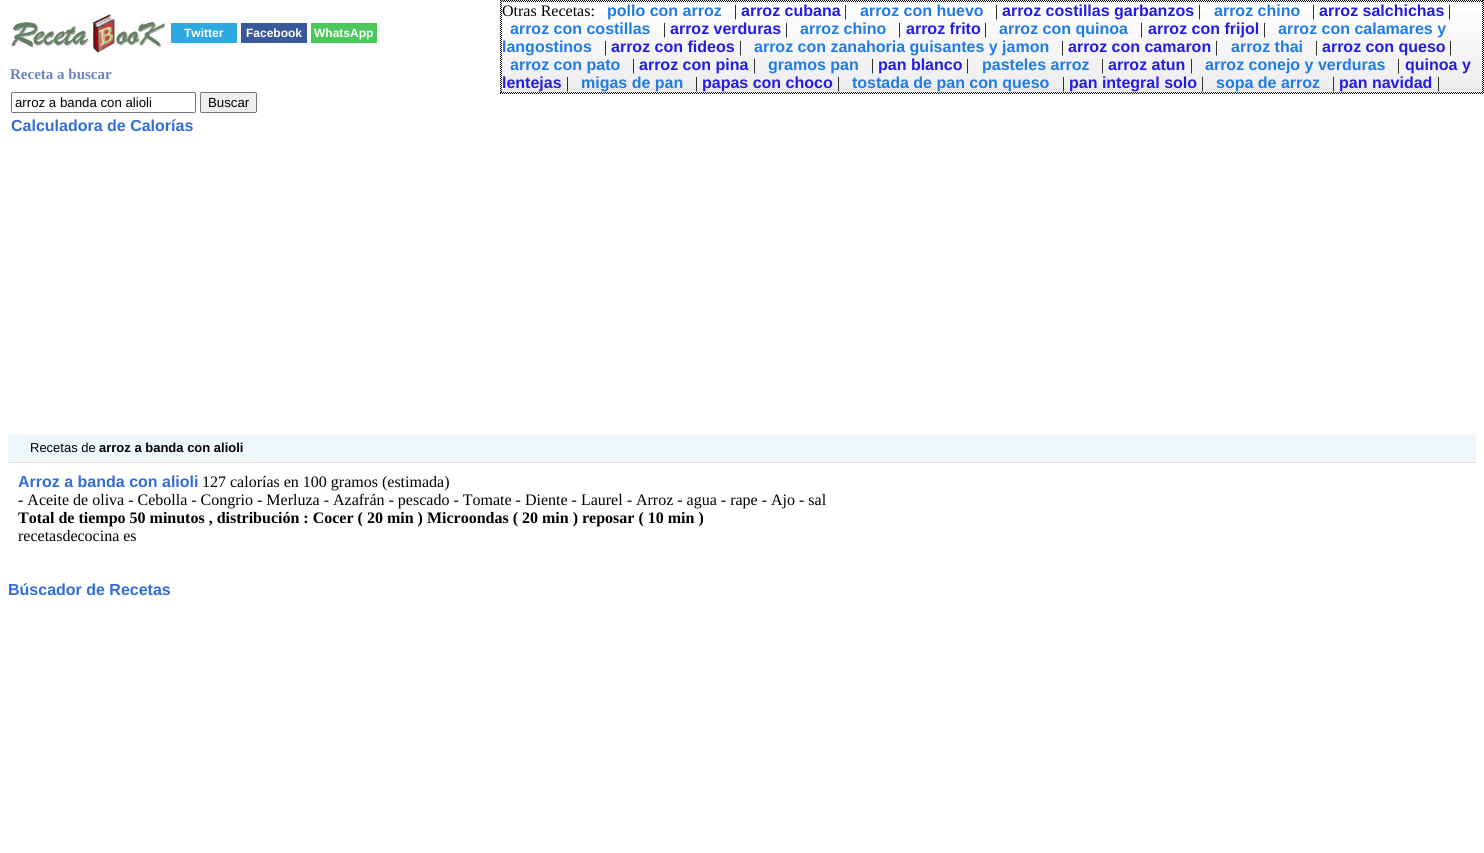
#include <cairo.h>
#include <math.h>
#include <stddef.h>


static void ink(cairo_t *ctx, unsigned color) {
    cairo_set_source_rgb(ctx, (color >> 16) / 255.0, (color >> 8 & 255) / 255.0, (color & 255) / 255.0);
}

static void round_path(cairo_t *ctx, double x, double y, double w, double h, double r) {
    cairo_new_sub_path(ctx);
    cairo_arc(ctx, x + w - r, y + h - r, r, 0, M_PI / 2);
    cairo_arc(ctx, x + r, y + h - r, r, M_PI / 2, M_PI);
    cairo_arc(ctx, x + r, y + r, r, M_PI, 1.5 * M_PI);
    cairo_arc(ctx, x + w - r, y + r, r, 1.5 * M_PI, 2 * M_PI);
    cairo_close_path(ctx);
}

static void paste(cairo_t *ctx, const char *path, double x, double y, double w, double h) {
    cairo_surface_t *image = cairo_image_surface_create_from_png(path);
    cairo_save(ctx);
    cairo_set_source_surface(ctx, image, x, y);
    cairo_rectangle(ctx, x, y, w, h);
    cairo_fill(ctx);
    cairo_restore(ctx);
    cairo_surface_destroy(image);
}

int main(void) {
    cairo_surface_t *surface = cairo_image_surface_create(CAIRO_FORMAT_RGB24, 1484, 853);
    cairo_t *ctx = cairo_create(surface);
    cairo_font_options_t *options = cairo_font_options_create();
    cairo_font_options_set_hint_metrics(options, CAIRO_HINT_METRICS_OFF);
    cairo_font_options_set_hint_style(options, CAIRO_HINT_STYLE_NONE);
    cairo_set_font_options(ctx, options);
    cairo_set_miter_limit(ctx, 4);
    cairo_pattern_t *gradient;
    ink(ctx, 0xFFFFFF);
    cairo_paint(ctx);
    paste(ctx, "media/1.png", 11, 14, 154, 39);
    ink(ctx, 0x2DAAE1);
    cairo_rectangle(ctx, 171, 23, 66, 20);
    cairo_fill(ctx);
    cairo_select_font_face(ctx, "Liberation Sans", CAIRO_FONT_SLANT_NORMAL, CAIRO_FONT_WEIGHT_BOLD);
    cairo_set_font_size(ctx, 12);
    ink(ctx, 0xFFFFFF);
    cairo_move_to(ctx, 184, 37);
    cairo_show_text(ctx, "Twitter");
    ink(ctx, 0x3B5998);
    cairo_rectangle(ctx, 241, 23, 66, 20);
    cairo_fill(ctx);
    ink(ctx, 0xFFFFFF);
    cairo_move_to(ctx, 246, 37);
    cairo_show_text(ctx, "Facebook");
    ink(ctx, 0x4AC85A);
    cairo_rectangle(ctx, 311, 23, 66, 20);
    cairo_fill(ctx);
    ink(ctx, 0xFFFFFF);
    cairo_move_to(ctx, 314, 37);
    cairo_show_text(ctx, "WhatsApp");
    gradient = cairo_pattern_create_linear(992, -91, 992, 1);
    cairo_pattern_add_color_stop_rgba(gradient, 0, 1, 1, 1, 1);
    cairo_pattern_add_color_stop_rgba(gradient, 0.47, 0.965, 0.965, 0.965, 1);
    cairo_pattern_add_color_stop_rgba(gradient, 1, 0.929, 0.929, 0.929, 1);
    cairo_set_source(ctx, gradient);
    cairo_pattern_destroy(gradient);
    cairo_rectangle(ctx, 500, 0, 984, 1);
    cairo_fill(ctx);
    gradient = cairo_pattern_create_linear(992, 1, 992, 93);
    cairo_pattern_add_color_stop_rgba(gradient, 0, 1, 1, 1, 1);
    cairo_pattern_add_color_stop_rgba(gradient, 0.47, 0.965, 0.965, 0.965, 1);
    cairo_pattern_add_color_stop_rgba(gradient, 1, 0.929, 0.929, 0.929, 1);
    cairo_set_source(ctx, gradient);
    cairo_pattern_destroy(gradient);
    cairo_rectangle(ctx, 500, 13, 984, 79);
    cairo_fill(ctx);
    cairo_new_path(ctx);
    cairo_move_to(ctx, 500, 0.5);
    cairo_line_to(ctx, 1484, 0.5);
    ink(ctx, 0x000000);
    cairo_set_line_width(ctx, 1);
    cairo_set_dash(ctx, (double[]){1, 1}, 2, 0);
    cairo_stroke(ctx);
    cairo_new_path(ctx);
    cairo_move_to(ctx, 1483.5, 0);
    cairo_line_to(ctx, 1483.5, 94);
    cairo_stroke(ctx);
    cairo_new_path(ctx);
    cairo_move_to(ctx, 500, 93.5);
    cairo_line_to(ctx, 1484, 93.5);
    cairo_stroke(ctx);
    cairo_new_path(ctx);
    cairo_move_to(ctx, 500.5, 0);
    cairo_line_to(ctx, 500.5, 94);
    cairo_stroke(ctx);
    gradient = cairo_pattern_create_linear(992, -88, 992, 2);
    cairo_pattern_add_color_stop_rgba(gradient, 0, 1, 1, 1, 1);
    cairo_pattern_add_color_stop_rgba(gradient, 0.47, 0.965, 0.965, 0.965, 1);
    cairo_pattern_add_color_stop_rgba(gradient, 1, 0.929, 0.929, 0.929, 1);
    cairo_set_source(ctx, gradient);
    cairo_pattern_destroy(gradient);
    cairo_rectangle(ctx, 501, 1, 982, 1);
    cairo_fill(ctx);
    cairo_new_path(ctx);
    cairo_move_to(ctx, 501, 1.5);
    cairo_line_to(ctx, 1483, 1.5);
    ink(ctx, 0x000000);
    cairo_stroke(ctx);
    cairo_new_path(ctx);
    cairo_move_to(ctx, 1482.5, 1);
    cairo_line_to(ctx, 1482.5, 93);
    cairo_stroke(ctx);
    cairo_new_path(ctx);
    cairo_move_to(ctx, 501, 92.5);
    cairo_line_to(ctx, 1483, 92.5);
    cairo_stroke(ctx);
    cairo_new_path(ctx);
    cairo_move_to(ctx, 501.5, 1);
    cairo_line_to(ctx, 501.5, 93);
    cairo_stroke(ctx);
    cairo_select_font_face(ctx, "Liberation Serif", CAIRO_FONT_SLANT_NORMAL, CAIRO_FONT_WEIGHT_NORMAL);
    cairo_set_font_size(ctx, 16);
    cairo_move_to(ctx, 502, 16);
    cairo_show_text(ctx, "Otras Recetas:");
    cairo_select_font_face(ctx, "Liberation Sans", CAIRO_FONT_SLANT_NORMAL, CAIRO_FONT_WEIGHT_BOLD);
    ink(ctx, 0x207CE5);
    cairo_move_to(ctx, 607, 16);
    cairo_show_text(ctx, "pollo con arroz");
    cairo_select_font_face(ctx, "Liberation Serif", CAIRO_FONT_SLANT_NORMAL, CAIRO_FONT_WEIGHT_NORMAL);
    ink(ctx, 0x000000);
    cairo_move_to(ctx, 734, 16);
    cairo_show_text(ctx, "|");
    cairo_select_font_face(ctx, "Liberation Sans", CAIRO_FONT_SLANT_NORMAL, CAIRO_FONT_WEIGHT_BOLD);
    ink(ctx, 0x231CE6);
    cairo_move_to(ctx, 741, 16);
    cairo_show_text(ctx, "arroz cubana");
    cairo_select_font_face(ctx, "Liberation Serif", CAIRO_FONT_SLANT_NORMAL, CAIRO_FONT_WEIGHT_NORMAL);
    ink(ctx, 0x000000);
    cairo_move_to(ctx, 844, 16);
    cairo_show_text(ctx, "|");
    cairo_select_font_face(ctx, "Liberation Sans", CAIRO_FONT_SLANT_NORMAL, CAIRO_FONT_WEIGHT_BOLD);
    ink(ctx, 0x207CE5);
    cairo_move_to(ctx, 860, 16);
    cairo_show_text(ctx, "arroz con huevo");
    cairo_select_font_face(ctx, "Liberation Serif", CAIRO_FONT_SLANT_NORMAL, CAIRO_FONT_WEIGHT_NORMAL);
    ink(ctx, 0x000000);
    cairo_move_to(ctx, 995, 16);
    cairo_show_text(ctx, "|");
    cairo_select_font_face(ctx, "Liberation Sans", CAIRO_FONT_SLANT_NORMAL, CAIRO_FONT_WEIGHT_BOLD);
    ink(ctx, 0x231CE6);
    cairo_move_to(ctx, 1002, 16);
    cairo_show_text(ctx, "arroz costillas garbanzos");
    cairo_select_font_face(ctx, "Liberation Serif", CAIRO_FONT_SLANT_NORMAL, CAIRO_FONT_WEIGHT_NORMAL);
    ink(ctx, 0x000000);
    cairo_move_to(ctx, 1198, 16);
    cairo_show_text(ctx, "|");
    cairo_select_font_face(ctx, "Liberation Sans", CAIRO_FONT_SLANT_NORMAL, CAIRO_FONT_WEIGHT_BOLD);
    ink(ctx, 0x207CE5);
    cairo_move_to(ctx, 1214, 16);
    cairo_show_text(ctx, "arroz chino");
    cairo_select_font_face(ctx, "Liberation Serif", CAIRO_FONT_SLANT_NORMAL, CAIRO_FONT_WEIGHT_NORMAL);
    ink(ctx, 0x000000);
    cairo_move_to(ctx, 1312, 16);
    cairo_show_text(ctx, "|");
    cairo_select_font_face(ctx, "Liberation Sans", CAIRO_FONT_SLANT_NORMAL, CAIRO_FONT_WEIGHT_BOLD);
    ink(ctx, 0x231CE6);
    cairo_move_to(ctx, 1319, 16);
    cairo_show_text(ctx, "arroz salchichas");
    cairo_select_font_face(ctx, "Liberation Serif", CAIRO_FONT_SLANT_NORMAL, CAIRO_FONT_WEIGHT_NORMAL);
    ink(ctx, 0x000000);
    cairo_move_to(ctx, 1448, 16);
    cairo_show_text(ctx, "|");
    cairo_select_font_face(ctx, "Liberation Sans", CAIRO_FONT_SLANT_NORMAL, CAIRO_FONT_WEIGHT_BOLD);
    ink(ctx, 0x207CE5);
    cairo_move_to(ctx, 510, 34);
    cairo_show_text(ctx, "arroz con costillas");
    cairo_select_font_face(ctx, "Liberation Serif", CAIRO_FONT_SLANT_NORMAL, CAIRO_FONT_WEIGHT_NORMAL);
    ink(ctx, 0x000000);
    cairo_move_to(ctx, 663, 34);
    cairo_show_text(ctx, "|");
    cairo_select_font_face(ctx, "Liberation Sans", CAIRO_FONT_SLANT_NORMAL, CAIRO_FONT_WEIGHT_BOLD);
    ink(ctx, 0x231CE6);
    cairo_move_to(ctx, 670, 34);
    cairo_show_text(ctx, "arroz verduras");
    cairo_select_font_face(ctx, "Liberation Serif", CAIRO_FONT_SLANT_NORMAL, CAIRO_FONT_WEIGHT_NORMAL);
    ink(ctx, 0x000000);
    cairo_move_to(ctx, 785, 34);
    cairo_show_text(ctx, "|");
    cairo_select_font_face(ctx, "Liberation Sans", CAIRO_FONT_SLANT_NORMAL, CAIRO_FONT_WEIGHT_BOLD);
    ink(ctx, 0x207CE5);
    cairo_move_to(ctx, 800, 34);
    cairo_show_text(ctx, "arroz chino");
    cairo_select_font_face(ctx, "Liberation Serif", CAIRO_FONT_SLANT_NORMAL, CAIRO_FONT_WEIGHT_NORMAL);
    ink(ctx, 0x000000);
    cairo_move_to(ctx, 898, 34);
    cairo_show_text(ctx, "|");
    cairo_select_font_face(ctx, "Liberation Sans", CAIRO_FONT_SLANT_NORMAL, CAIRO_FONT_WEIGHT_BOLD);
    ink(ctx, 0x231CE6);
    cairo_move_to(ctx, 906, 34);
    cairo_show_text(ctx, "arroz frito");
    cairo_select_font_face(ctx, "Liberation Serif", CAIRO_FONT_SLANT_NORMAL, CAIRO_FONT_WEIGHT_NORMAL);
    ink(ctx, 0x000000);
    cairo_move_to(ctx, 984, 34);
    cairo_show_text(ctx, "|");
    cairo_select_font_face(ctx, "Liberation Sans", CAIRO_FONT_SLANT_NORMAL, CAIRO_FONT_WEIGHT_BOLD);
    ink(ctx, 0x207CE5);
    cairo_move_to(ctx, 999, 34);
    cairo_show_text(ctx, "arroz con quinoa");
    cairo_select_font_face(ctx, "Liberation Serif", CAIRO_FONT_SLANT_NORMAL, CAIRO_FONT_WEIGHT_NORMAL);
    ink(ctx, 0x000000);
    cairo_move_to(ctx, 1140, 34);
    cairo_show_text(ctx, "|");
    cairo_select_font_face(ctx, "Liberation Sans", CAIRO_FONT_SLANT_NORMAL, CAIRO_FONT_WEIGHT_BOLD);
    ink(ctx, 0x231CE6);
    cairo_move_to(ctx, 1148, 34);
    cairo_show_text(ctx, "arroz con frijol");
    cairo_select_font_face(ctx, "Liberation Serif", CAIRO_FONT_SLANT_NORMAL, CAIRO_FONT_WEIGHT_NORMAL);
    ink(ctx, 0x000000);
    cairo_move_to(ctx, 1263, 34);
    cairo_show_text(ctx, "|");
    cairo_select_font_face(ctx, "Liberation Sans", CAIRO_FONT_SLANT_NORMAL, CAIRO_FONT_WEIGHT_BOLD);
    ink(ctx, 0x207CE5);
    cairo_move_to(ctx, 1278, 34);
    cairo_show_text(ctx, "arroz con calamares y");
    cairo_move_to(ctx, 502, 52);
    cairo_show_text(ctx, "langostinos");
    cairo_select_font_face(ctx, "Liberation Serif", CAIRO_FONT_SLANT_NORMAL, CAIRO_FONT_WEIGHT_NORMAL);
    ink(ctx, 0x000000);
    cairo_move_to(ctx, 604, 52);
    cairo_show_text(ctx, "|");
    cairo_select_font_face(ctx, "Liberation Sans", CAIRO_FONT_SLANT_NORMAL, CAIRO_FONT_WEIGHT_BOLD);
    ink(ctx, 0x231CE6);
    cairo_move_to(ctx, 611, 52);
    cairo_show_text(ctx, "arroz con fideos");
    cairo_select_font_face(ctx, "Liberation Serif", CAIRO_FONT_SLANT_NORMAL, CAIRO_FONT_WEIGHT_NORMAL);
    ink(ctx, 0x000000);
    cairo_move_to(ctx, 739, 52);
    cairo_show_text(ctx, "|");
    cairo_select_font_face(ctx, "Liberation Sans", CAIRO_FONT_SLANT_NORMAL, CAIRO_FONT_WEIGHT_BOLD);
    ink(ctx, 0x207CE5);
    cairo_move_to(ctx, 754, 52);
    cairo_show_text(ctx, "arroz con zanahoria guisantes y jamon");
    cairo_select_font_face(ctx, "Liberation Serif", CAIRO_FONT_SLANT_NORMAL, CAIRO_FONT_WEIGHT_NORMAL);
    ink(ctx, 0x000000);
    cairo_move_to(ctx, 1061, 52);
    cairo_show_text(ctx, "|");
    cairo_select_font_face(ctx, "Liberation Sans", CAIRO_FONT_SLANT_NORMAL, CAIRO_FONT_WEIGHT_BOLD);
    ink(ctx, 0x231CE6);
    cairo_move_to(ctx, 1068, 52);
    cairo_show_text(ctx, "arroz con camaron");
    cairo_select_font_face(ctx, "Liberation Serif", CAIRO_FONT_SLANT_NORMAL, CAIRO_FONT_WEIGHT_NORMAL);
    ink(ctx, 0x000000);
    cairo_move_to(ctx, 1215, 52);
    cairo_show_text(ctx, "|");
    cairo_select_font_face(ctx, "Liberation Sans", CAIRO_FONT_SLANT_NORMAL, CAIRO_FONT_WEIGHT_BOLD);
    ink(ctx, 0x207CE5);
    cairo_move_to(ctx, 1231, 52);
    cairo_show_text(ctx, "arroz thai");
    cairo_select_font_face(ctx, "Liberation Serif", CAIRO_FONT_SLANT_NORMAL, CAIRO_FONT_WEIGHT_NORMAL);
    ink(ctx, 0x000000);
    cairo_move_to(ctx, 1315, 52);
    cairo_show_text(ctx, "|");
    cairo_select_font_face(ctx, "Liberation Sans", CAIRO_FONT_SLANT_NORMAL, CAIRO_FONT_WEIGHT_BOLD);
    ink(ctx, 0x231CE6);
    cairo_move_to(ctx, 1322, 52);
    cairo_show_text(ctx, "arroz con queso");
    cairo_select_font_face(ctx, "Liberation Serif", CAIRO_FONT_SLANT_NORMAL, CAIRO_FONT_WEIGHT_NORMAL);
    ink(ctx, 0x000000);
    cairo_move_to(ctx, 1449, 52);
    cairo_show_text(ctx, "|");
    cairo_select_font_face(ctx, "Liberation Sans", CAIRO_FONT_SLANT_NORMAL, CAIRO_FONT_WEIGHT_BOLD);
    ink(ctx, 0x207CE5);
    cairo_move_to(ctx, 510, 70);
    cairo_show_text(ctx, "arroz con pato");
    cairo_select_font_face(ctx, "Liberation Serif", CAIRO_FONT_SLANT_NORMAL, CAIRO_FONT_WEIGHT_NORMAL);
    ink(ctx, 0x000000);
    cairo_move_to(ctx, 632, 70);
    cairo_show_text(ctx, "|");
    cairo_select_font_face(ctx, "Liberation Sans", CAIRO_FONT_SLANT_NORMAL, CAIRO_FONT_WEIGHT_BOLD);
    ink(ctx, 0x231CE6);
    cairo_move_to(ctx, 639, 70);
    cairo_show_text(ctx, "arroz con pina");
    cairo_select_font_face(ctx, "Liberation Serif", CAIRO_FONT_SLANT_NORMAL, CAIRO_FONT_WEIGHT_NORMAL);
    ink(ctx, 0x000000);
    cairo_move_to(ctx, 753, 70);
    cairo_show_text(ctx, "|");
    cairo_select_font_face(ctx, "Liberation Sans", CAIRO_FONT_SLANT_NORMAL, CAIRO_FONT_WEIGHT_BOLD);
    ink(ctx, 0x207CE5);
    cairo_move_to(ctx, 768, 70);
    cairo_show_text(ctx, "gramos pan");
    cairo_select_font_face(ctx, "Liberation Serif", CAIRO_FONT_SLANT_NORMAL, CAIRO_FONT_WEIGHT_NORMAL);
    ink(ctx, 0x000000);
    cairo_move_to(ctx, 871, 70);
    cairo_show_text(ctx, "|");
    cairo_select_font_face(ctx, "Liberation Sans", CAIRO_FONT_SLANT_NORMAL, CAIRO_FONT_WEIGHT_BOLD);
    ink(ctx, 0x231CE6);
    cairo_move_to(ctx, 878, 70);
    cairo_show_text(ctx, "pan blanco");
    cairo_select_font_face(ctx, "Liberation Serif", CAIRO_FONT_SLANT_NORMAL, CAIRO_FONT_WEIGHT_NORMAL);
    ink(ctx, 0x000000);
    cairo_move_to(ctx, 966, 70);
    cairo_show_text(ctx, "|");
    cairo_select_font_face(ctx, "Liberation Sans", CAIRO_FONT_SLANT_NORMAL, CAIRO_FONT_WEIGHT_BOLD);
    ink(ctx, 0x207CE5);
    cairo_move_to(ctx, 982, 70);
    cairo_show_text(ctx, "pasteles arroz");
    cairo_select_font_face(ctx, "Liberation Serif", CAIRO_FONT_SLANT_NORMAL, CAIRO_FONT_WEIGHT_NORMAL);
    ink(ctx, 0x000000);
    cairo_move_to(ctx, 1101, 70);
    cairo_show_text(ctx, "|");
    cairo_select_font_face(ctx, "Liberation Sans", CAIRO_FONT_SLANT_NORMAL, CAIRO_FONT_WEIGHT_BOLD);
    ink(ctx, 0x231CE6);
    cairo_move_to(ctx, 1108, 70);
    cairo_show_text(ctx, "arroz atun");
    cairo_select_font_face(ctx, "Liberation Serif", CAIRO_FONT_SLANT_NORMAL, CAIRO_FONT_WEIGHT_NORMAL);
    ink(ctx, 0x000000);
    cairo_move_to(ctx, 1190, 70);
    cairo_show_text(ctx, "|");
    cairo_select_font_face(ctx, "Liberation Sans", CAIRO_FONT_SLANT_NORMAL, CAIRO_FONT_WEIGHT_BOLD);
    ink(ctx, 0x207CE5);
    cairo_move_to(ctx, 1205, 70);
    cairo_show_text(ctx, "arroz conejo y verduras");
    cairo_select_font_face(ctx, "Liberation Serif", CAIRO_FONT_SLANT_NORMAL, CAIRO_FONT_WEIGHT_NORMAL);
    ink(ctx, 0x000000);
    cairo_move_to(ctx, 1397, 70);
    cairo_show_text(ctx, "|");
    cairo_select_font_face(ctx, "Liberation Sans", CAIRO_FONT_SLANT_NORMAL, CAIRO_FONT_WEIGHT_BOLD);
    ink(ctx, 0x231CE6);
    cairo_move_to(ctx, 1405, 70);
    cairo_show_text(ctx, "quinoa y");
    cairo_move_to(ctx, 502, 88);
    cairo_show_text(ctx, "lentejas");
    cairo_select_font_face(ctx, "Liberation Serif", CAIRO_FONT_SLANT_NORMAL, CAIRO_FONT_WEIGHT_NORMAL);
    ink(ctx, 0x000000);
    cairo_move_to(ctx, 566, 88);
    cairo_show_text(ctx, "|");
    cairo_select_font_face(ctx, "Liberation Sans", CAIRO_FONT_SLANT_NORMAL, CAIRO_FONT_WEIGHT_BOLD);
    ink(ctx, 0x207CE5);
    cairo_move_to(ctx, 581, 88);
    cairo_show_text(ctx, "migas de pan");
    cairo_select_font_face(ctx, "Liberation Serif", CAIRO_FONT_SLANT_NORMAL, CAIRO_FONT_WEIGHT_NORMAL);
    ink(ctx, 0x000000);
    cairo_move_to(ctx, 695, 88);
    cairo_show_text(ctx, "|");
    cairo_select_font_face(ctx, "Liberation Sans", CAIRO_FONT_SLANT_NORMAL, CAIRO_FONT_WEIGHT_BOLD);
    ink(ctx, 0x231CE6);
    cairo_move_to(ctx, 702, 88);
    cairo_show_text(ctx, "papas con choco");
    cairo_select_font_face(ctx, "Liberation Serif", CAIRO_FONT_SLANT_NORMAL, CAIRO_FONT_WEIGHT_NORMAL);
    ink(ctx, 0x000000);
    cairo_move_to(ctx, 837, 88);
    cairo_show_text(ctx, "|");
    cairo_select_font_face(ctx, "Liberation Sans", CAIRO_FONT_SLANT_NORMAL, CAIRO_FONT_WEIGHT_BOLD);
    ink(ctx, 0x207CE5);
    cairo_move_to(ctx, 852, 88);
    cairo_show_text(ctx, "tostada de pan con queso");
    cairo_select_font_face(ctx, "Liberation Serif", CAIRO_FONT_SLANT_NORMAL, CAIRO_FONT_WEIGHT_NORMAL);
    ink(ctx, 0x000000);
    cairo_move_to(ctx, 1062, 88);
    cairo_show_text(ctx, "|");
    cairo_select_font_face(ctx, "Liberation Sans", CAIRO_FONT_SLANT_NORMAL, CAIRO_FONT_WEIGHT_BOLD);
    ink(ctx, 0x231CE6);
    cairo_move_to(ctx, 1069, 88);
    cairo_show_text(ctx, "pan integral solo");
    cairo_select_font_face(ctx, "Liberation Serif", CAIRO_FONT_SLANT_NORMAL, CAIRO_FONT_WEIGHT_NORMAL);
    ink(ctx, 0x000000);
    cairo_move_to(ctx, 1201, 88);
    cairo_show_text(ctx, "|");
    cairo_select_font_face(ctx, "Liberation Sans", CAIRO_FONT_SLANT_NORMAL, CAIRO_FONT_WEIGHT_BOLD);
    ink(ctx, 0x207CE5);
    cairo_move_to(ctx, 1216, 88);
    cairo_show_text(ctx, "sopa de arroz");
    cairo_select_font_face(ctx, "Liberation Serif", CAIRO_FONT_SLANT_NORMAL, CAIRO_FONT_WEIGHT_NORMAL);
    ink(ctx, 0x000000);
    cairo_move_to(ctx, 1332, 88);
    cairo_show_text(ctx, "|");
    cairo_select_font_face(ctx, "Liberation Sans", CAIRO_FONT_SLANT_NORMAL, CAIRO_FONT_WEIGHT_BOLD);
    ink(ctx, 0x231CE6);
    cairo_move_to(ctx, 1339, 88);
    cairo_show_text(ctx, "pan navidad");
    cairo_select_font_face(ctx, "Liberation Serif", CAIRO_FONT_SLANT_NORMAL, CAIRO_FONT_WEIGHT_NORMAL);
    ink(ctx, 0x000000);
    cairo_move_to(ctx, 1437, 88);
    cairo_show_text(ctx, "|");
    cairo_select_font_face(ctx, "Liberation Serif", CAIRO_FONT_SLANT_NORMAL, CAIRO_FONT_WEIGHT_BOLD);
    cairo_set_font_size(ctx, 15);
    ink(ctx, 0x6685BF);
    cairo_move_to(ctx, 10, 79);
    cairo_show_text(ctx, "Receta a buscar");
    round_path(ctx, 11.5, 92.5, 184, 20, 1.5);
    ink(ctx, 0x767676);
    cairo_set_dash(ctx, NULL, 0, 0);
    cairo_stroke(ctx);
    cairo_select_font_face(ctx, "Liberation Sans", CAIRO_FONT_SLANT_NORMAL, CAIRO_FONT_WEIGHT_NORMAL);
    cairo_set_font_size(ctx, 13.25);
    ink(ctx, 0x000000);
    cairo_move_to(ctx, 15, 107);
    cairo_show_text(ctx, "arroz a banda con alioli");
    ink(ctx, 0xEFEFEF);
    round_path(ctx, 200.5, 92.5, 56, 20, 1.5);
    cairo_fill_preserve(ctx);
    ink(ctx, 0x767676);
    cairo_stroke(ctx);
    ink(ctx, 0x000000);
    cairo_move_to(ctx, 208, 107);
    cairo_show_text(ctx, "Buscar");
    cairo_select_font_face(ctx, "Liberation Sans", CAIRO_FONT_SLANT_NORMAL, CAIRO_FONT_WEIGHT_BOLD);
    cairo_set_font_size(ctx, 16);
    ink(ctx, 0x326CD9);
    cairo_move_to(ctx, 11, 131);
    cairo_show_text(ctx, "Calculadora de Calorías");
    ink(ctx, 0xF0F8FF);
    cairo_rectangle(ctx, 8, 434, 1468, 28);
    cairo_fill(ctx);
    ink(ctx, 0xE0E0E0);
    cairo_rectangle(ctx, 8, 462, 1468, 1);
    cairo_fill(ctx);
    cairo_select_font_face(ctx, "Liberation Sans", CAIRO_FONT_SLANT_NORMAL, CAIRO_FONT_WEIGHT_NORMAL);
    cairo_set_font_size(ctx, 13);
    ink(ctx, 0x000000);
    cairo_move_to(ctx, 30, 452);
    cairo_show_text(ctx, "Recetas de");
    cairo_select_font_face(ctx, "Liberation Sans", CAIRO_FONT_SLANT_NORMAL, CAIRO_FONT_WEIGHT_BOLD);
    cairo_move_to(ctx, 99, 452);
    cairo_show_text(ctx, "arroz a banda con alioli");
    cairo_set_font_size(ctx, 16);
    ink(ctx, 0x326CD9);
    cairo_move_to(ctx, 18, 487);
    cairo_show_text(ctx, "Arroz a banda con alioli");
    cairo_select_font_face(ctx, "Liberation Serif", CAIRO_FONT_SLANT_NORMAL, CAIRO_FONT_WEIGHT_NORMAL);
    ink(ctx, 0x000000);
    cairo_move_to(ctx, 202, 487);
    cairo_show_text(ctx, "127 calorías en 100 gramos (estimada)");
    cairo_move_to(ctx, 18, 505);
    cairo_show_text(ctx, "- Aceite de oliva - Cebolla - Congrio - Merluza - Azafrán - pescado - Tomate - Diente - Laurel - Arroz - agua - rape - Ajo - sal");
    cairo_select_font_face(ctx, "Liberation Serif", CAIRO_FONT_SLANT_NORMAL, CAIRO_FONT_WEIGHT_BOLD);
    cairo_move_to(ctx, 18, 523);
    cairo_show_text(ctx, "Total de tiempo 50 minutos , distribución : Cocer ( 20 min ) Microondas ( 20 min ) reposar ( 10 min )");
    cairo_select_font_face(ctx, "Liberation Serif", CAIRO_FONT_SLANT_NORMAL, CAIRO_FONT_WEIGHT_NORMAL);
    cairo_move_to(ctx, 18, 541);
    cairo_show_text(ctx, "recetasdecocina es");
    cairo_select_font_face(ctx, "Liberation Sans", CAIRO_FONT_SLANT_NORMAL, CAIRO_FONT_WEIGHT_BOLD);
    ink(ctx, 0x326CD9);
    cairo_move_to(ctx, 8, 595);
    cairo_show_text(ctx, "Búscador de Recetas");
    cairo_surface_write_to_png(surface, "image.png");
    cairo_font_options_destroy(options);
    cairo_destroy(ctx);
    cairo_surface_destroy(surface);
    return 0;
}
